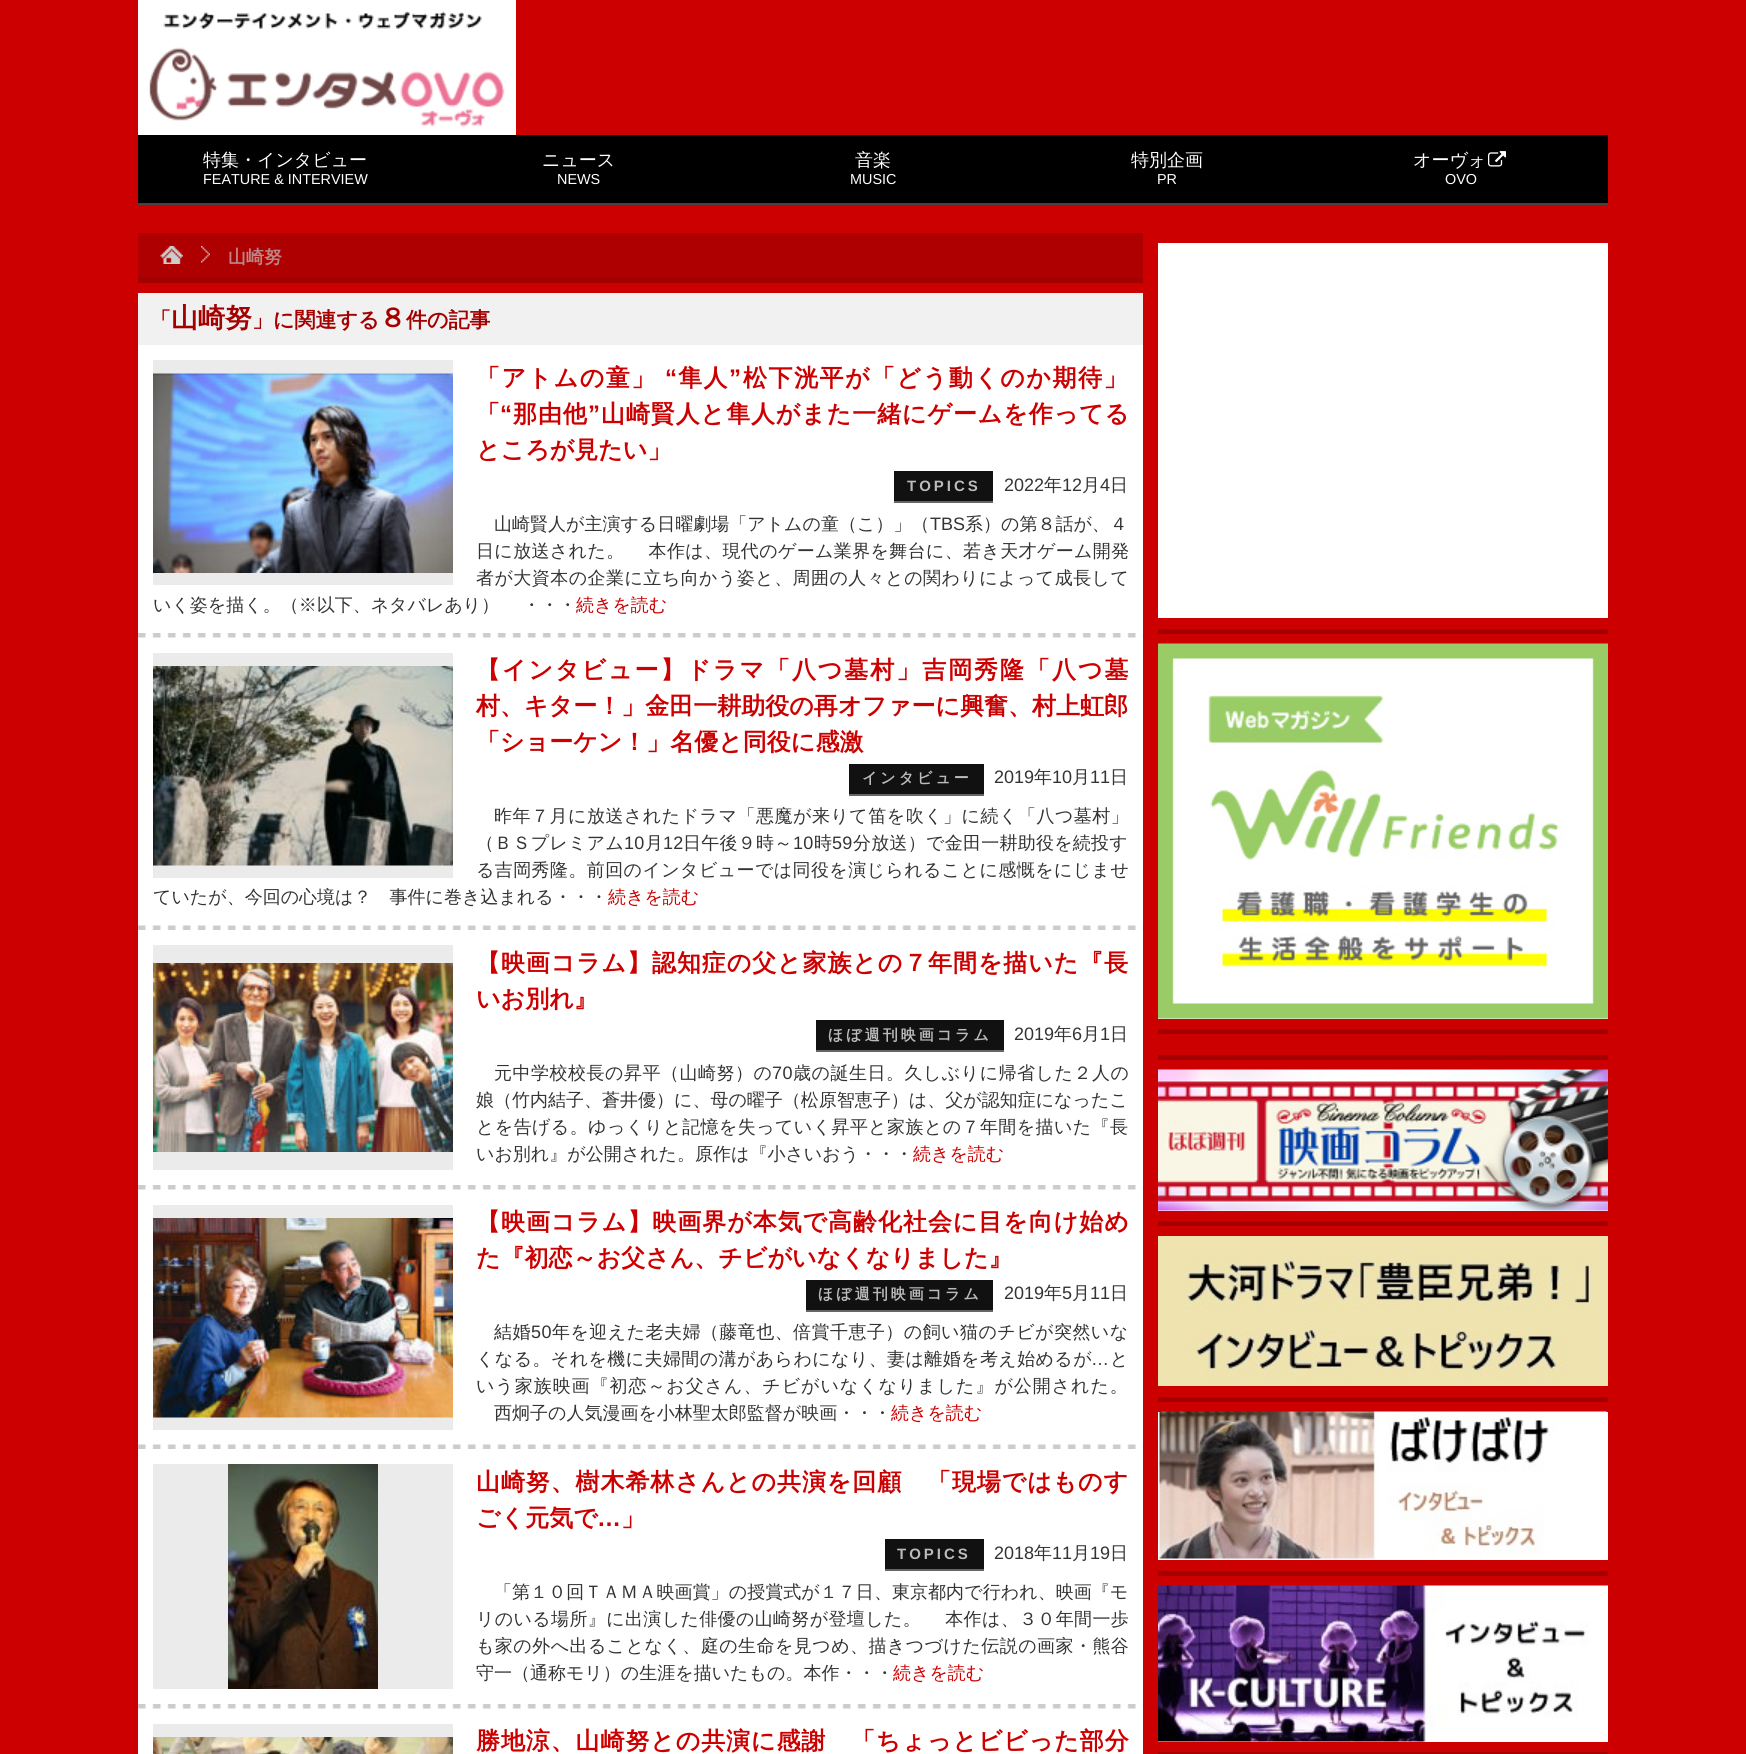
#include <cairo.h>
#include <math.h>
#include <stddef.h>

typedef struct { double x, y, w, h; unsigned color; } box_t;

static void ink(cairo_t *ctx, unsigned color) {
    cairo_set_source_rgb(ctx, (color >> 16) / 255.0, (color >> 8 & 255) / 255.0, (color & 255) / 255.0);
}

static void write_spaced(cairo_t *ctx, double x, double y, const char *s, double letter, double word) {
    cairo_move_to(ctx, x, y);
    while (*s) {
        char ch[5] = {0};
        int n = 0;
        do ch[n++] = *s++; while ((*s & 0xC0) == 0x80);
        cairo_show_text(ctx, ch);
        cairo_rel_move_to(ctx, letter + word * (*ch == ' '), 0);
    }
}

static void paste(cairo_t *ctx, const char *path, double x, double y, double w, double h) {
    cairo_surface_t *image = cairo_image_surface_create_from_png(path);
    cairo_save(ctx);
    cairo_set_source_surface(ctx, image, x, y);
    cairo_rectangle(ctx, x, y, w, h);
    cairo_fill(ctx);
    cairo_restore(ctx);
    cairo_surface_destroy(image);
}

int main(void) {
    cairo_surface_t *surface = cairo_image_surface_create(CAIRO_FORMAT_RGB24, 1746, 1754);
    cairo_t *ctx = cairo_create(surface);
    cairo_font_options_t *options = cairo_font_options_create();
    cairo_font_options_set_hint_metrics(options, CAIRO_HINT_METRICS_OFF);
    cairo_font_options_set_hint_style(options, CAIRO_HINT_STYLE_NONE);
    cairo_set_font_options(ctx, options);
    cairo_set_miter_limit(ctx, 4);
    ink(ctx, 0xCC0000);
    cairo_paint(ctx);
    paste(ctx, "media/1.png", 138, 0, 378, 39);
    paste(ctx, "media/2.png", 138, 39, 378, 96);
    ink(ctx, 0x000000);
    cairo_rectangle(ctx, 138, 135, 1470, 68);
    cairo_fill(ctx);
    ink(ctx, 0x444444);
    cairo_rectangle(ctx, 138, 203, 1470, 2);
    cairo_fill(ctx);
    cairo_select_font_face(ctx, "WenQuanYi Zen Hei Medium", CAIRO_FONT_SLANT_NORMAL, CAIRO_FONT_WEIGHT_NORMAL);
    cairo_set_font_size(ctx, 18);
    ink(ctx, 0xFFFFFF);
    cairo_move_to(ctx, 203, 166);
    cairo_show_text(ctx, "特集・インタビュー");
    cairo_select_font_face(ctx, "Liberation Sans", CAIRO_FONT_SLANT_NORMAL, CAIRO_FONT_WEIGHT_NORMAL);
    cairo_set_font_size(ctx, 14.4);
    cairo_move_to(ctx, 203, 184);
    cairo_show_text(ctx, "FEATURE & INTERVIEW");
    cairo_select_font_face(ctx, "WenQuanYi Zen Hei Medium", CAIRO_FONT_SLANT_NORMAL, CAIRO_FONT_WEIGHT_NORMAL);
    cairo_set_font_size(ctx, 18);
    cairo_move_to(ctx, 542, 166);
    cairo_show_text(ctx, "ニュース");
    cairo_select_font_face(ctx, "Liberation Sans", CAIRO_FONT_SLANT_NORMAL, CAIRO_FONT_WEIGHT_NORMAL);
    cairo_set_font_size(ctx, 14.4);
    cairo_move_to(ctx, 557, 184);
    cairo_show_text(ctx, "NEWS");
    cairo_select_font_face(ctx, "WenQuanYi Zen Hei Medium", CAIRO_FONT_SLANT_NORMAL, CAIRO_FONT_WEIGHT_NORMAL);
    cairo_set_font_size(ctx, 18);
    cairo_move_to(ctx, 855, 166);
    cairo_show_text(ctx, "音楽");
    cairo_select_font_face(ctx, "Liberation Sans", CAIRO_FONT_SLANT_NORMAL, CAIRO_FONT_WEIGHT_NORMAL);
    cairo_set_font_size(ctx, 14.4);
    cairo_move_to(ctx, 850, 184);
    cairo_show_text(ctx, "MUSIC");
    cairo_select_font_face(ctx, "WenQuanYi Zen Hei Medium", CAIRO_FONT_SLANT_NORMAL, CAIRO_FONT_WEIGHT_NORMAL);
    cairo_set_font_size(ctx, 18);
    cairo_move_to(ctx, 1131, 166);
    cairo_show_text(ctx, "特別企画");
    cairo_select_font_face(ctx, "Liberation Sans", CAIRO_FONT_SLANT_NORMAL, CAIRO_FONT_WEIGHT_NORMAL);
    cairo_set_font_size(ctx, 14.4);
    cairo_move_to(ctx, 1157, 184);
    cairo_show_text(ctx, "PR");
    cairo_select_font_face(ctx, "WenQuanYi Zen Hei Medium", CAIRO_FONT_SLANT_NORMAL, CAIRO_FONT_WEIGHT_NORMAL);
    cairo_set_font_size(ctx, 18);
    cairo_move_to(ctx, 1413, 166);
    cairo_show_text(ctx, "オーヴォ");
    paste(ctx, "media/3.png", 1488, 151, 18, 16);
    cairo_select_font_face(ctx, "Liberation Sans", CAIRO_FONT_SLANT_NORMAL, CAIRO_FONT_WEIGHT_NORMAL);
    cairo_set_font_size(ctx, 14.4);
    cairo_move_to(ctx, 1445, 184);
    cairo_show_text(ctx, "OVO");
    ink(ctx, 0xAE0000);
    cairo_rectangle(ctx, 138, 233, 1005, 45);
    cairo_fill(ctx);
    paste(ctx, "media/4.png", 160, 246, 23, 18);
    paste(ctx, "media/5.png", 201, 246, 9, 17);
    cairo_select_font_face(ctx, "WenQuanYi Zen Hei", CAIRO_FONT_SLANT_NORMAL, CAIRO_FONT_WEIGHT_BOLD);
    cairo_set_font_size(ctx, 18);
    ink(ctx, 0xBA8686);
    cairo_move_to(ctx, 228, 263);
    cairo_show_text(ctx, "山崎努");
    {
        static const box_t items[] = {
            {138, 278, 1005, 5, 0xA30000},
            {138, 345, 1005, 1409, 0xFFFFFF},
            {138, 293, 1005, 52, 0xF1F1F1},
        };
        for (size_t i = 0; i < sizeof items / sizeof *items; i++) {
            ink(ctx, items[i].color);
            cairo_rectangle(ctx, items[i].x, items[i].y, items[i].w, items[i].h);
            cairo_fill(ctx);
        }
    }
    cairo_set_font_size(ctx, 21);
    ink(ctx, 0xA30000);
    cairo_move_to(ctx, 150, 327);
    cairo_show_text(ctx, "「");
    cairo_set_font_size(ctx, 27);
    cairo_move_to(ctx, 171, 327);
    cairo_show_text(ctx, "山崎努");
    cairo_set_font_size(ctx, 21);
    cairo_move_to(ctx, 252, 327);
    cairo_show_text(ctx, "」に関連する");
    cairo_set_font_size(ctx, 27);
    cairo_move_to(ctx, 379, 327);
    cairo_show_text(ctx, "８");
    cairo_set_font_size(ctx, 21);
    cairo_move_to(ctx, 406, 327);
    cairo_show_text(ctx, "件の記事");
    ink(ctx, 0xEBEBEB);
    cairo_rectangle(ctx, 153, 360, 300, 225);
    cairo_fill(ctx);
    paste(ctx, "media/6.png", 153, 373, 300, 200);
    cairo_set_font_size(ctx, 24);
    ink(ctx, 0xCC0000);
    write_spaced(ctx, 476, 386, "「アトムの童」", 1.5, 0);
    cairo_select_font_face(ctx, "Liberation Sans", CAIRO_FONT_SLANT_NORMAL, CAIRO_FONT_WEIGHT_BOLD);
    write_spaced(ctx, 665, 386, "“", 1.5, 0);
    cairo_select_font_face(ctx, "WenQuanYi Zen Hei", CAIRO_FONT_SLANT_NORMAL, CAIRO_FONT_WEIGHT_BOLD);
    write_spaced(ctx, 678, 386, "隼人", 1.5, 0);
    cairo_select_font_face(ctx, "Liberation Sans", CAIRO_FONT_SLANT_NORMAL, CAIRO_FONT_WEIGHT_BOLD);
    write_spaced(ctx, 729, 386, "”", 1.5, 0);
    cairo_select_font_face(ctx, "WenQuanYi Zen Hei", CAIRO_FONT_SLANT_NORMAL, CAIRO_FONT_WEIGHT_BOLD);
    write_spaced(ctx, 743, 386, "松下洸平が「どう動くのか期待」", 1.5, 0);
    write_spaced(ctx, 476, 422, "「", 0.9, 0);
    cairo_select_font_face(ctx, "Liberation Sans", CAIRO_FONT_SLANT_NORMAL, CAIRO_FONT_WEIGHT_BOLD);
    write_spaced(ctx, 500, 422, "“", 0.9, 0);
    cairo_select_font_face(ctx, "WenQuanYi Zen Hei", CAIRO_FONT_SLANT_NORMAL, CAIRO_FONT_WEIGHT_BOLD);
    write_spaced(ctx, 513, 422, "那由他", 0.9, 0);
    cairo_select_font_face(ctx, "Liberation Sans", CAIRO_FONT_SLANT_NORMAL, CAIRO_FONT_WEIGHT_BOLD);
    write_spaced(ctx, 588, 422, "”", 0.9, 0);
    cairo_select_font_face(ctx, "WenQuanYi Zen Hei", CAIRO_FONT_SLANT_NORMAL, CAIRO_FONT_WEIGHT_BOLD);
    write_spaced(ctx, 601, 422, "山崎賢人と隼人がまた一緒にゲームを作ってる", 0.9, 0);
    cairo_move_to(ctx, 476, 458);
    cairo_show_text(ctx, "ところが見たい」");
    ink(ctx, 0x111111);
    cairo_rectangle(ctx, 894, 471, 99, 30);
    cairo_fill(ctx);
    ink(ctx, 0x666666);
    cairo_rectangle(ctx, 894, 501, 99, 2);
    cairo_fill(ctx);
    cairo_select_font_face(ctx, "Liberation Sans", CAIRO_FONT_SLANT_NORMAL, CAIRO_FONT_WEIGHT_BOLD);
    cairo_set_font_size(ctx, 15);
    ink(ctx, 0xBBBBBB);
    write_spaced(ctx, 907, 491, "TOPICS", 3, 0);
    cairo_select_font_face(ctx, "Liberation Sans", CAIRO_FONT_SLANT_NORMAL, CAIRO_FONT_WEIGHT_NORMAL);
    cairo_set_font_size(ctx, 18);
    ink(ctx, 0x333333);
    cairo_move_to(ctx, 1004, 491);
    cairo_show_text(ctx, "2022");
    cairo_select_font_face(ctx, "WenQuanYi Zen Hei Medium", CAIRO_FONT_SLANT_NORMAL, CAIRO_FONT_WEIGHT_NORMAL);
    cairo_move_to(ctx, 1044, 491);
    cairo_show_text(ctx, "年");
    cairo_select_font_face(ctx, "Liberation Sans", CAIRO_FONT_SLANT_NORMAL, CAIRO_FONT_WEIGHT_NORMAL);
    cairo_move_to(ctx, 1062, 491);
    cairo_show_text(ctx, "12");
    cairo_select_font_face(ctx, "WenQuanYi Zen Hei Medium", CAIRO_FONT_SLANT_NORMAL, CAIRO_FONT_WEIGHT_NORMAL);
    cairo_move_to(ctx, 1082, 491);
    cairo_show_text(ctx, "月");
    cairo_select_font_face(ctx, "Liberation Sans", CAIRO_FONT_SLANT_NORMAL, CAIRO_FONT_WEIGHT_NORMAL);
    cairo_move_to(ctx, 1100, 491);
    cairo_show_text(ctx, "4");
    cairo_select_font_face(ctx, "WenQuanYi Zen Hei Medium", CAIRO_FONT_SLANT_NORMAL, CAIRO_FONT_WEIGHT_NORMAL);
    cairo_move_to(ctx, 1110, 491);
    cairo_show_text(ctx, "日");
    cairo_move_to(ctx, 494, 530);
    cairo_show_text(ctx, "山崎賢人が主演する日曜劇場「アトムの童（こ）」（");
    cairo_select_font_face(ctx, "Liberation Sans", CAIRO_FONT_SLANT_NORMAL, CAIRO_FONT_WEIGHT_NORMAL);
    cairo_move_to(ctx, 930, 530);
    cairo_show_text(ctx, "TBS");
    cairo_select_font_face(ctx, "WenQuanYi Zen Hei Medium", CAIRO_FONT_SLANT_NORMAL, CAIRO_FONT_WEIGHT_NORMAL);
    cairo_move_to(ctx, 965, 530);
    cairo_show_text(ctx, "系）の第８話が、４");
    write_spaced(ctx, 476, 557, "日に放送された。 　本作は、現代のゲーム業界を舞台に、若き天才ゲーム開発", 0.35, 0);
    write_spaced(ctx, 476, 584, "者が大資本の企業に立ち向かう姿と、周囲の人々との関わりによって成長して", 0.45, 0);
    cairo_move_to(ctx, 153, 611);
    cairo_show_text(ctx, "いく姿を描く。（※以下、ネタバレあり） 　・・・");
    ink(ctx, 0xCC0000);
    cairo_move_to(ctx, 576, 611);
    cairo_show_text(ctx, "続きを読む");
    paste(ctx, "media/7.png", 138, 633, 1005, 5);
    ink(ctx, 0xEBEBEB);
    cairo_rectangle(ctx, 153, 653, 300, 225);
    cairo_fill(ctx);
    paste(ctx, "media/8.png", 153, 666, 300, 200);
    cairo_select_font_face(ctx, "WenQuanYi Zen Hei", CAIRO_FONT_SLANT_NORMAL, CAIRO_FONT_WEIGHT_BOLD);
    cairo_set_font_size(ctx, 24);
    ink(ctx, 0xCC0000);
    write_spaced(ctx, 476, 678, "【インタビュー】ドラマ「八つ墓村」吉岡秀隆「八つ墓", 1.95, 0);
    cairo_move_to(ctx, 476, 714);
    cairo_show_text(ctx, "村、キター！」金田一耕助役の再オファーに興奮、村上虹郎");
    cairo_move_to(ctx, 476, 750);
    cairo_show_text(ctx, "「ショーケン！」名優と同役に感激");
    ink(ctx, 0x111111);
    cairo_rectangle(ctx, 849, 764, 135, 30);
    cairo_fill(ctx);
    ink(ctx, 0x666666);
    cairo_rectangle(ctx, 849, 794, 135, 2);
    cairo_fill(ctx);
    cairo_set_font_size(ctx, 15);
    ink(ctx, 0xBBBBBB);
    write_spaced(ctx, 862, 783, "インタビュー", 3, 0);
    cairo_select_font_face(ctx, "Liberation Sans", CAIRO_FONT_SLANT_NORMAL, CAIRO_FONT_WEIGHT_NORMAL);
    cairo_set_font_size(ctx, 18);
    ink(ctx, 0x333333);
    cairo_move_to(ctx, 994, 783);
    cairo_show_text(ctx, "2019");
    cairo_select_font_face(ctx, "WenQuanYi Zen Hei Medium", CAIRO_FONT_SLANT_NORMAL, CAIRO_FONT_WEIGHT_NORMAL);
    cairo_move_to(ctx, 1034, 783);
    cairo_show_text(ctx, "年");
    cairo_select_font_face(ctx, "Liberation Sans", CAIRO_FONT_SLANT_NORMAL, CAIRO_FONT_WEIGHT_NORMAL);
    cairo_move_to(ctx, 1052, 783);
    cairo_show_text(ctx, "10");
    cairo_select_font_face(ctx, "WenQuanYi Zen Hei Medium", CAIRO_FONT_SLANT_NORMAL, CAIRO_FONT_WEIGHT_NORMAL);
    cairo_move_to(ctx, 1072, 783);
    cairo_show_text(ctx, "月");
    cairo_select_font_face(ctx, "Liberation Sans", CAIRO_FONT_SLANT_NORMAL, CAIRO_FONT_WEIGHT_NORMAL);
    cairo_move_to(ctx, 1090, 783);
    cairo_show_text(ctx, "11");
    cairo_select_font_face(ctx, "WenQuanYi Zen Hei Medium", CAIRO_FONT_SLANT_NORMAL, CAIRO_FONT_WEIGHT_NORMAL);
    cairo_move_to(ctx, 1110, 783);
    cairo_show_text(ctx, "日");
    write_spaced(ctx, 494, 822, "昨年７月に放送されたドラマ「悪魔が来りて笛を吹く」に続く「八つ墓村」", 0.5, 0);
    write_spaced(ctx, 476, 849, "（ＢＳプレミアム", 0.25, 0);
    cairo_select_font_face(ctx, "Liberation Sans", CAIRO_FONT_SLANT_NORMAL, CAIRO_FONT_WEIGHT_NORMAL);
    write_spaced(ctx, 624, 849, "10", 0.25, 0);
    cairo_select_font_face(ctx, "WenQuanYi Zen Hei Medium", CAIRO_FONT_SLANT_NORMAL, CAIRO_FONT_WEIGHT_NORMAL);
    write_spaced(ctx, 645, 849, "月", 0.25, 0);
    cairo_select_font_face(ctx, "Liberation Sans", CAIRO_FONT_SLANT_NORMAL, CAIRO_FONT_WEIGHT_NORMAL);
    write_spaced(ctx, 663, 849, "12", 0.25, 0);
    cairo_select_font_face(ctx, "WenQuanYi Zen Hei Medium", CAIRO_FONT_SLANT_NORMAL, CAIRO_FONT_WEIGHT_NORMAL);
    write_spaced(ctx, 683, 849, "日午後９時～", 0.25, 0);
    cairo_select_font_face(ctx, "Liberation Sans", CAIRO_FONT_SLANT_NORMAL, CAIRO_FONT_WEIGHT_NORMAL);
    write_spaced(ctx, 793, 849, "10", 0.25, 0);
    cairo_select_font_face(ctx, "WenQuanYi Zen Hei Medium", CAIRO_FONT_SLANT_NORMAL, CAIRO_FONT_WEIGHT_NORMAL);
    write_spaced(ctx, 814, 849, "時", 0.25, 0);
    cairo_select_font_face(ctx, "Liberation Sans", CAIRO_FONT_SLANT_NORMAL, CAIRO_FONT_WEIGHT_NORMAL);
    write_spaced(ctx, 832, 849, "59", 0.25, 0);
    cairo_select_font_face(ctx, "WenQuanYi Zen Hei Medium", CAIRO_FONT_SLANT_NORMAL, CAIRO_FONT_WEIGHT_NORMAL);
    write_spaced(ctx, 853, 849, "分放送）で金田一耕助役を続投す", 0.25, 0);
    write_spaced(ctx, 476, 876, "る吉岡秀隆。前回のインタビューでは同役を演じられることに感慨をにじませ", 0.4, 0);
    cairo_move_to(ctx, 153, 903);
    cairo_show_text(ctx, "ていたが、今回の心境は？　事件に巻き込まれる・・・");
    ink(ctx, 0xCC0000);
    cairo_move_to(ctx, 608, 903);
    cairo_show_text(ctx, "続きを読む");
    paste(ctx, "media/9.png", 138, 925, 1005, 5);
    ink(ctx, 0xEBEBEB);
    cairo_rectangle(ctx, 153, 945, 300, 225);
    cairo_fill(ctx);
    paste(ctx, "media/10.png", 153, 963, 300, 189);
    cairo_select_font_face(ctx, "WenQuanYi Zen Hei", CAIRO_FONT_SLANT_NORMAL, CAIRO_FONT_WEIGHT_BOLD);
    cairo_set_font_size(ctx, 24);
    ink(ctx, 0xCC0000);
    write_spaced(ctx, 476, 971, "【映画コラム】認知症の父と家族との７年間を描いた『長", 0.9, 0);
    cairo_move_to(ctx, 476, 1007);
    cairo_show_text(ctx, "いお別れ』");
    ink(ctx, 0x111111);
    cairo_rectangle(ctx, 816, 1020, 188, 30);
    cairo_fill(ctx);
    ink(ctx, 0x666666);
    cairo_rectangle(ctx, 816, 1050, 188, 2);
    cairo_fill(ctx);
    cairo_set_font_size(ctx, 15);
    ink(ctx, 0xBBBBBB);
    write_spaced(ctx, 828, 1040, "ほぼ週刊映画コラム", 3, 0);
    cairo_select_font_face(ctx, "Liberation Sans", CAIRO_FONT_SLANT_NORMAL, CAIRO_FONT_WEIGHT_NORMAL);
    cairo_set_font_size(ctx, 18);
    ink(ctx, 0x333333);
    cairo_move_to(ctx, 1014, 1040);
    cairo_show_text(ctx, "2019");
    cairo_select_font_face(ctx, "WenQuanYi Zen Hei Medium", CAIRO_FONT_SLANT_NORMAL, CAIRO_FONT_WEIGHT_NORMAL);
    cairo_move_to(ctx, 1054, 1040);
    cairo_show_text(ctx, "年");
    cairo_select_font_face(ctx, "Liberation Sans", CAIRO_FONT_SLANT_NORMAL, CAIRO_FONT_WEIGHT_NORMAL);
    cairo_move_to(ctx, 1072, 1040);
    cairo_show_text(ctx, "6");
    cairo_select_font_face(ctx, "WenQuanYi Zen Hei Medium", CAIRO_FONT_SLANT_NORMAL, CAIRO_FONT_WEIGHT_NORMAL);
    cairo_move_to(ctx, 1082, 1040);
    cairo_show_text(ctx, "月");
    cairo_select_font_face(ctx, "Liberation Sans", CAIRO_FONT_SLANT_NORMAL, CAIRO_FONT_WEIGHT_NORMAL);
    cairo_move_to(ctx, 1100, 1040);
    cairo_show_text(ctx, "1");
    cairo_select_font_face(ctx, "WenQuanYi Zen Hei Medium", CAIRO_FONT_SLANT_NORMAL, CAIRO_FONT_WEIGHT_NORMAL);
    cairo_move_to(ctx, 1110, 1040);
    cairo_show_text(ctx, "日");
    write_spaced(ctx, 494, 1079, "元中学校校長の昇平（山崎努）の", 0.5, 0);
    cairo_select_font_face(ctx, "Liberation Sans", CAIRO_FONT_SLANT_NORMAL, CAIRO_FONT_WEIGHT_NORMAL);
    write_spaced(ctx, 772, 1079, "70", 0.5, 0);
    cairo_select_font_face(ctx, "WenQuanYi Zen Hei Medium", CAIRO_FONT_SLANT_NORMAL, CAIRO_FONT_WEIGHT_NORMAL);
    write_spaced(ctx, 793, 1079, "歳の誕生日。久しぶりに帰省した２人の", 0.5, 0);
    cairo_move_to(ctx, 476, 1106);
    cairo_show_text(ctx, "娘（竹内結子、蒼井優）に、母の曜子（松原智恵子）は、父が認知症になったこ");
    write_spaced(ctx, 476, 1133, "とを告げる。ゆっくりと記憶を失っていく昇平と家族との７年間を描いた『長", 0.4, 0);
    cairo_move_to(ctx, 476, 1160);
    cairo_show_text(ctx, "いお別れ』が公開された。原作は『小さいおう・・・");
    ink(ctx, 0xCC0000);
    cairo_move_to(ctx, 913, 1160);
    cairo_show_text(ctx, "続きを読む");
    paste(ctx, "media/7.png", 138, 1185, 1005, 5);
    ink(ctx, 0xEBEBEB);
    cairo_rectangle(ctx, 153, 1205, 300, 225);
    cairo_fill(ctx);
    paste(ctx, "media/11.png", 153, 1218, 300, 200);
    cairo_select_font_face(ctx, "WenQuanYi Zen Hei", CAIRO_FONT_SLANT_NORMAL, CAIRO_FONT_WEIGHT_BOLD);
    cairo_set_font_size(ctx, 24);
    ink(ctx, 0xCC0000);
    write_spaced(ctx, 476, 1230, "【映画コラム】映画界が本気で高齢化社会に目を向け始め", 0.95, 0);
    cairo_move_to(ctx, 476, 1266);
    cairo_show_text(ctx, "た『初恋～お父さん、チビがいなくなりました』");
    ink(ctx, 0x111111);
    cairo_rectangle(ctx, 806, 1280, 187, 30);
    cairo_fill(ctx);
    ink(ctx, 0x666666);
    cairo_rectangle(ctx, 806, 1310, 187, 2);
    cairo_fill(ctx);
    cairo_set_font_size(ctx, 15);
    ink(ctx, 0xBBBBBB);
    write_spaced(ctx, 818, 1299, "ほぼ週刊映画コラム", 3, 0);
    cairo_select_font_face(ctx, "Liberation Sans", CAIRO_FONT_SLANT_NORMAL, CAIRO_FONT_WEIGHT_NORMAL);
    cairo_set_font_size(ctx, 18);
    ink(ctx, 0x333333);
    cairo_move_to(ctx, 1004, 1299);
    cairo_show_text(ctx, "2019");
    cairo_select_font_face(ctx, "WenQuanYi Zen Hei Medium", CAIRO_FONT_SLANT_NORMAL, CAIRO_FONT_WEIGHT_NORMAL);
    cairo_move_to(ctx, 1044, 1299);
    cairo_show_text(ctx, "年");
    cairo_select_font_face(ctx, "Liberation Sans", CAIRO_FONT_SLANT_NORMAL, CAIRO_FONT_WEIGHT_NORMAL);
    cairo_move_to(ctx, 1062, 1299);
    cairo_show_text(ctx, "5");
    cairo_select_font_face(ctx, "WenQuanYi Zen Hei Medium", CAIRO_FONT_SLANT_NORMAL, CAIRO_FONT_WEIGHT_NORMAL);
    cairo_move_to(ctx, 1072, 1299);
    cairo_show_text(ctx, "月");
    cairo_select_font_face(ctx, "Liberation Sans", CAIRO_FONT_SLANT_NORMAL, CAIRO_FONT_WEIGHT_NORMAL);
    cairo_move_to(ctx, 1090, 1299);
    cairo_show_text(ctx, "11");
    cairo_select_font_face(ctx, "WenQuanYi Zen Hei Medium", CAIRO_FONT_SLANT_NORMAL, CAIRO_FONT_WEIGHT_NORMAL);
    cairo_move_to(ctx, 1110, 1299);
    cairo_show_text(ctx, "日");
    write_spaced(ctx, 494, 1338, "結婚", 0.45, 0);
    cairo_select_font_face(ctx, "Liberation Sans", CAIRO_FONT_SLANT_NORMAL, CAIRO_FONT_WEIGHT_NORMAL);
    write_spaced(ctx, 531, 1338, "50", 0.45, 0);
    cairo_select_font_face(ctx, "WenQuanYi Zen Hei Medium", CAIRO_FONT_SLANT_NORMAL, CAIRO_FONT_WEIGHT_NORMAL);
    write_spaced(ctx, 552, 1338, "年を迎えた老夫婦（藤竜也、倍賞千恵子）の飼い猫のチビが突然いな", 0.45, 0);
    write_spaced(ctx, 476, 1365, "くなる。それを機に夫婦間の溝があらわになり、妻は離婚を考え始めるが", 0.4, 0);
    cairo_select_font_face(ctx, "Liberation Sans", CAIRO_FONT_SLANT_NORMAL, CAIRO_FONT_WEIGHT_NORMAL);
    write_spaced(ctx, 1091, 1365, "…", 0.4, 0);
    cairo_select_font_face(ctx, "WenQuanYi Zen Hei Medium", CAIRO_FONT_SLANT_NORMAL, CAIRO_FONT_WEIGHT_NORMAL);
    write_spaced(ctx, 1110, 1365, "と", 0.4, 0);
    write_spaced(ctx, 476, 1392, "いう家族映画『初恋～お父さん、チビがいなくなりました』が公開された。", 0.95, 0);
    cairo_move_to(ctx, 494, 1419);
    cairo_show_text(ctx, "西炯子の人気漫画を小林聖太郎監督が映画・・・");
    ink(ctx, 0xCC0000);
    cairo_move_to(ctx, 891, 1419);
    cairo_show_text(ctx, "続きを読む");
    paste(ctx, "media/9.png", 138, 1444, 1005, 5);
    ink(ctx, 0xEBEBEB);
    cairo_rectangle(ctx, 153, 1464, 300, 225);
    cairo_fill(ctx);
    paste(ctx, "media/12.png", 228, 1464, 150, 225);
    cairo_select_font_face(ctx, "WenQuanYi Zen Hei", CAIRO_FONT_SLANT_NORMAL, CAIRO_FONT_WEIGHT_BOLD);
    cairo_set_font_size(ctx, 24);
    ink(ctx, 0xCC0000);
    write_spaced(ctx, 476, 1490, "山崎努、樹木希林さんとの共演を回顧　「現場ではものす", 0.9, 0);
    cairo_move_to(ctx, 476, 1526);
    cairo_show_text(ctx, "ごく元気で");
    cairo_select_font_face(ctx, "Liberation Sans", CAIRO_FONT_SLANT_NORMAL, CAIRO_FONT_WEIGHT_BOLD);
    cairo_move_to(ctx, 597, 1526);
    cairo_show_text(ctx, "…");
    cairo_select_font_face(ctx, "WenQuanYi Zen Hei", CAIRO_FONT_SLANT_NORMAL, CAIRO_FONT_WEIGHT_BOLD);
    cairo_move_to(ctx, 621, 1526);
    cairo_show_text(ctx, "」");
    ink(ctx, 0x111111);
    cairo_rectangle(ctx, 885, 1539, 99, 30);
    cairo_fill(ctx);
    ink(ctx, 0x666666);
    cairo_rectangle(ctx, 885, 1569, 99, 2);
    cairo_fill(ctx);
    cairo_select_font_face(ctx, "Liberation Sans", CAIRO_FONT_SLANT_NORMAL, CAIRO_FONT_WEIGHT_BOLD);
    cairo_set_font_size(ctx, 15);
    ink(ctx, 0xBBBBBB);
    write_spaced(ctx, 897, 1559, "TOPICS", 3, 0);
    cairo_select_font_face(ctx, "Liberation Sans", CAIRO_FONT_SLANT_NORMAL, CAIRO_FONT_WEIGHT_NORMAL);
    cairo_set_font_size(ctx, 18);
    ink(ctx, 0x333333);
    cairo_move_to(ctx, 994, 1559);
    cairo_show_text(ctx, "2018");
    cairo_select_font_face(ctx, "WenQuanYi Zen Hei Medium", CAIRO_FONT_SLANT_NORMAL, CAIRO_FONT_WEIGHT_NORMAL);
    cairo_move_to(ctx, 1034, 1559);
    cairo_show_text(ctx, "年");
    cairo_select_font_face(ctx, "Liberation Sans", CAIRO_FONT_SLANT_NORMAL, CAIRO_FONT_WEIGHT_NORMAL);
    cairo_move_to(ctx, 1052, 1559);
    cairo_show_text(ctx, "11");
    cairo_select_font_face(ctx, "WenQuanYi Zen Hei Medium", CAIRO_FONT_SLANT_NORMAL, CAIRO_FONT_WEIGHT_NORMAL);
    cairo_move_to(ctx, 1072, 1559);
    cairo_show_text(ctx, "月");
    cairo_select_font_face(ctx, "Liberation Sans", CAIRO_FONT_SLANT_NORMAL, CAIRO_FONT_WEIGHT_NORMAL);
    cairo_move_to(ctx, 1090, 1559);
    cairo_show_text(ctx, "19");
    cairo_select_font_face(ctx, "WenQuanYi Zen Hei Medium", CAIRO_FONT_SLANT_NORMAL, CAIRO_FONT_WEIGHT_NORMAL);
    cairo_move_to(ctx, 1110, 1559);
    cairo_show_text(ctx, "日");
    write_spaced(ctx, 494, 1598, "「第１０回ＴＡＭＡ映画賞」の授賞式が１７日、東京都内で行われ、映画『モ", 0.05, 0);
    write_spaced(ctx, 476, 1625, "リのいる場所』に出演した俳優の山崎努が登壇した。 　本作は、３０年間一歩", 0.35, 0);
    write_spaced(ctx, 476, 1652, "も家の外へ出ることなく、庭の生命を見つめ、描きつづけた伝説の画家・熊谷", 0.45, 0);
    cairo_move_to(ctx, 476, 1679);
    cairo_show_text(ctx, "守一（通称モリ）の生涯を描いたもの。本作・・・");
    ink(ctx, 0xCC0000);
    cairo_move_to(ctx, 893, 1679);
    cairo_show_text(ctx, "続きを読む");
    paste(ctx, "media/7.png", 138, 1704, 1005, 5);
    ink(ctx, 0xEBEBEB);
    cairo_rectangle(ctx, 153, 1724, 300, 13);
    cairo_fill(ctx);
    paste(ctx, "media/13.png", 153, 1737, 300, 17);
    cairo_select_font_face(ctx, "WenQuanYi Zen Hei", CAIRO_FONT_SLANT_NORMAL, CAIRO_FONT_WEIGHT_BOLD);
    cairo_set_font_size(ctx, 24);
    ink(ctx, 0xCC0000);
    write_spaced(ctx, 476, 1749, "勝地涼、山崎努との共演に感謝　「ちょっとビビった部分", 0.9, 0);
    {
        static const box_t items[] = {
            {1158, 243, 450, 375, 0xFFFFFF},
            {1158, 629, 450, 5, 0xA30000},
            {1158, 1018, 450, 1, 0xFFFFFF},
        };
        for (size_t i = 0; i < sizeof items / sizeof *items; i++) {
            ink(ctx, items[i].color);
            cairo_rectangle(ctx, items[i].x, items[i].y, items[i].w, items[i].h);
            cairo_fill(ctx);
        }
    }
    paste(ctx, "media/14.png", 1158, 643, 450, 376);
    {
        static const box_t items[] = {
            {1158, 1029, 450, 5, 0xA30000},
            {1158, 1055, 450, 5, 0xA30000},
            {1158, 1210, 450, 1, 0xFFFFFF},
        };
        for (size_t i = 0; i < sizeof items / sizeof *items; i++) {
            ink(ctx, items[i].color);
            cairo_rectangle(ctx, items[i].x, items[i].y, items[i].w, items[i].h);
            cairo_fill(ctx);
        }
    }
    paste(ctx, "media/15.png", 1158, 1069, 450, 142);
    ink(ctx, 0xA30000);
    cairo_rectangle(ctx, 1158, 1221, 450, 5);
    cairo_fill(ctx);
    paste(ctx, "media/16.png", 1158, 1236, 450, 150);
    cairo_rectangle(ctx, 1158, 1397, 450, 5);
    cairo_fill(ctx);
    ink(ctx, 0xFFFFFF);
    cairo_rectangle(ctx, 1158, 1412, 450, 148);
    cairo_fill(ctx);
    paste(ctx, "media/17.png", 1159, 1411, 448, 149);
    ink(ctx, 0xA30000);
    cairo_rectangle(ctx, 1158, 1571, 450, 5);
    cairo_fill(ctx);
    ink(ctx, 0xFFFFFF);
    cairo_rectangle(ctx, 1158, 1741, 450, 1);
    cairo_fill(ctx);
    paste(ctx, "media/18.png", 1158, 1585, 450, 157);
    ink(ctx, 0xA30000);
    cairo_rectangle(ctx, 1158, 1752, 450, 2);
    cairo_fill(ctx);
    cairo_surface_write_to_png(surface, "image.png");
    cairo_font_options_destroy(options);
    cairo_destroy(ctx);
    cairo_surface_destroy(surface);
    return 0;
}
